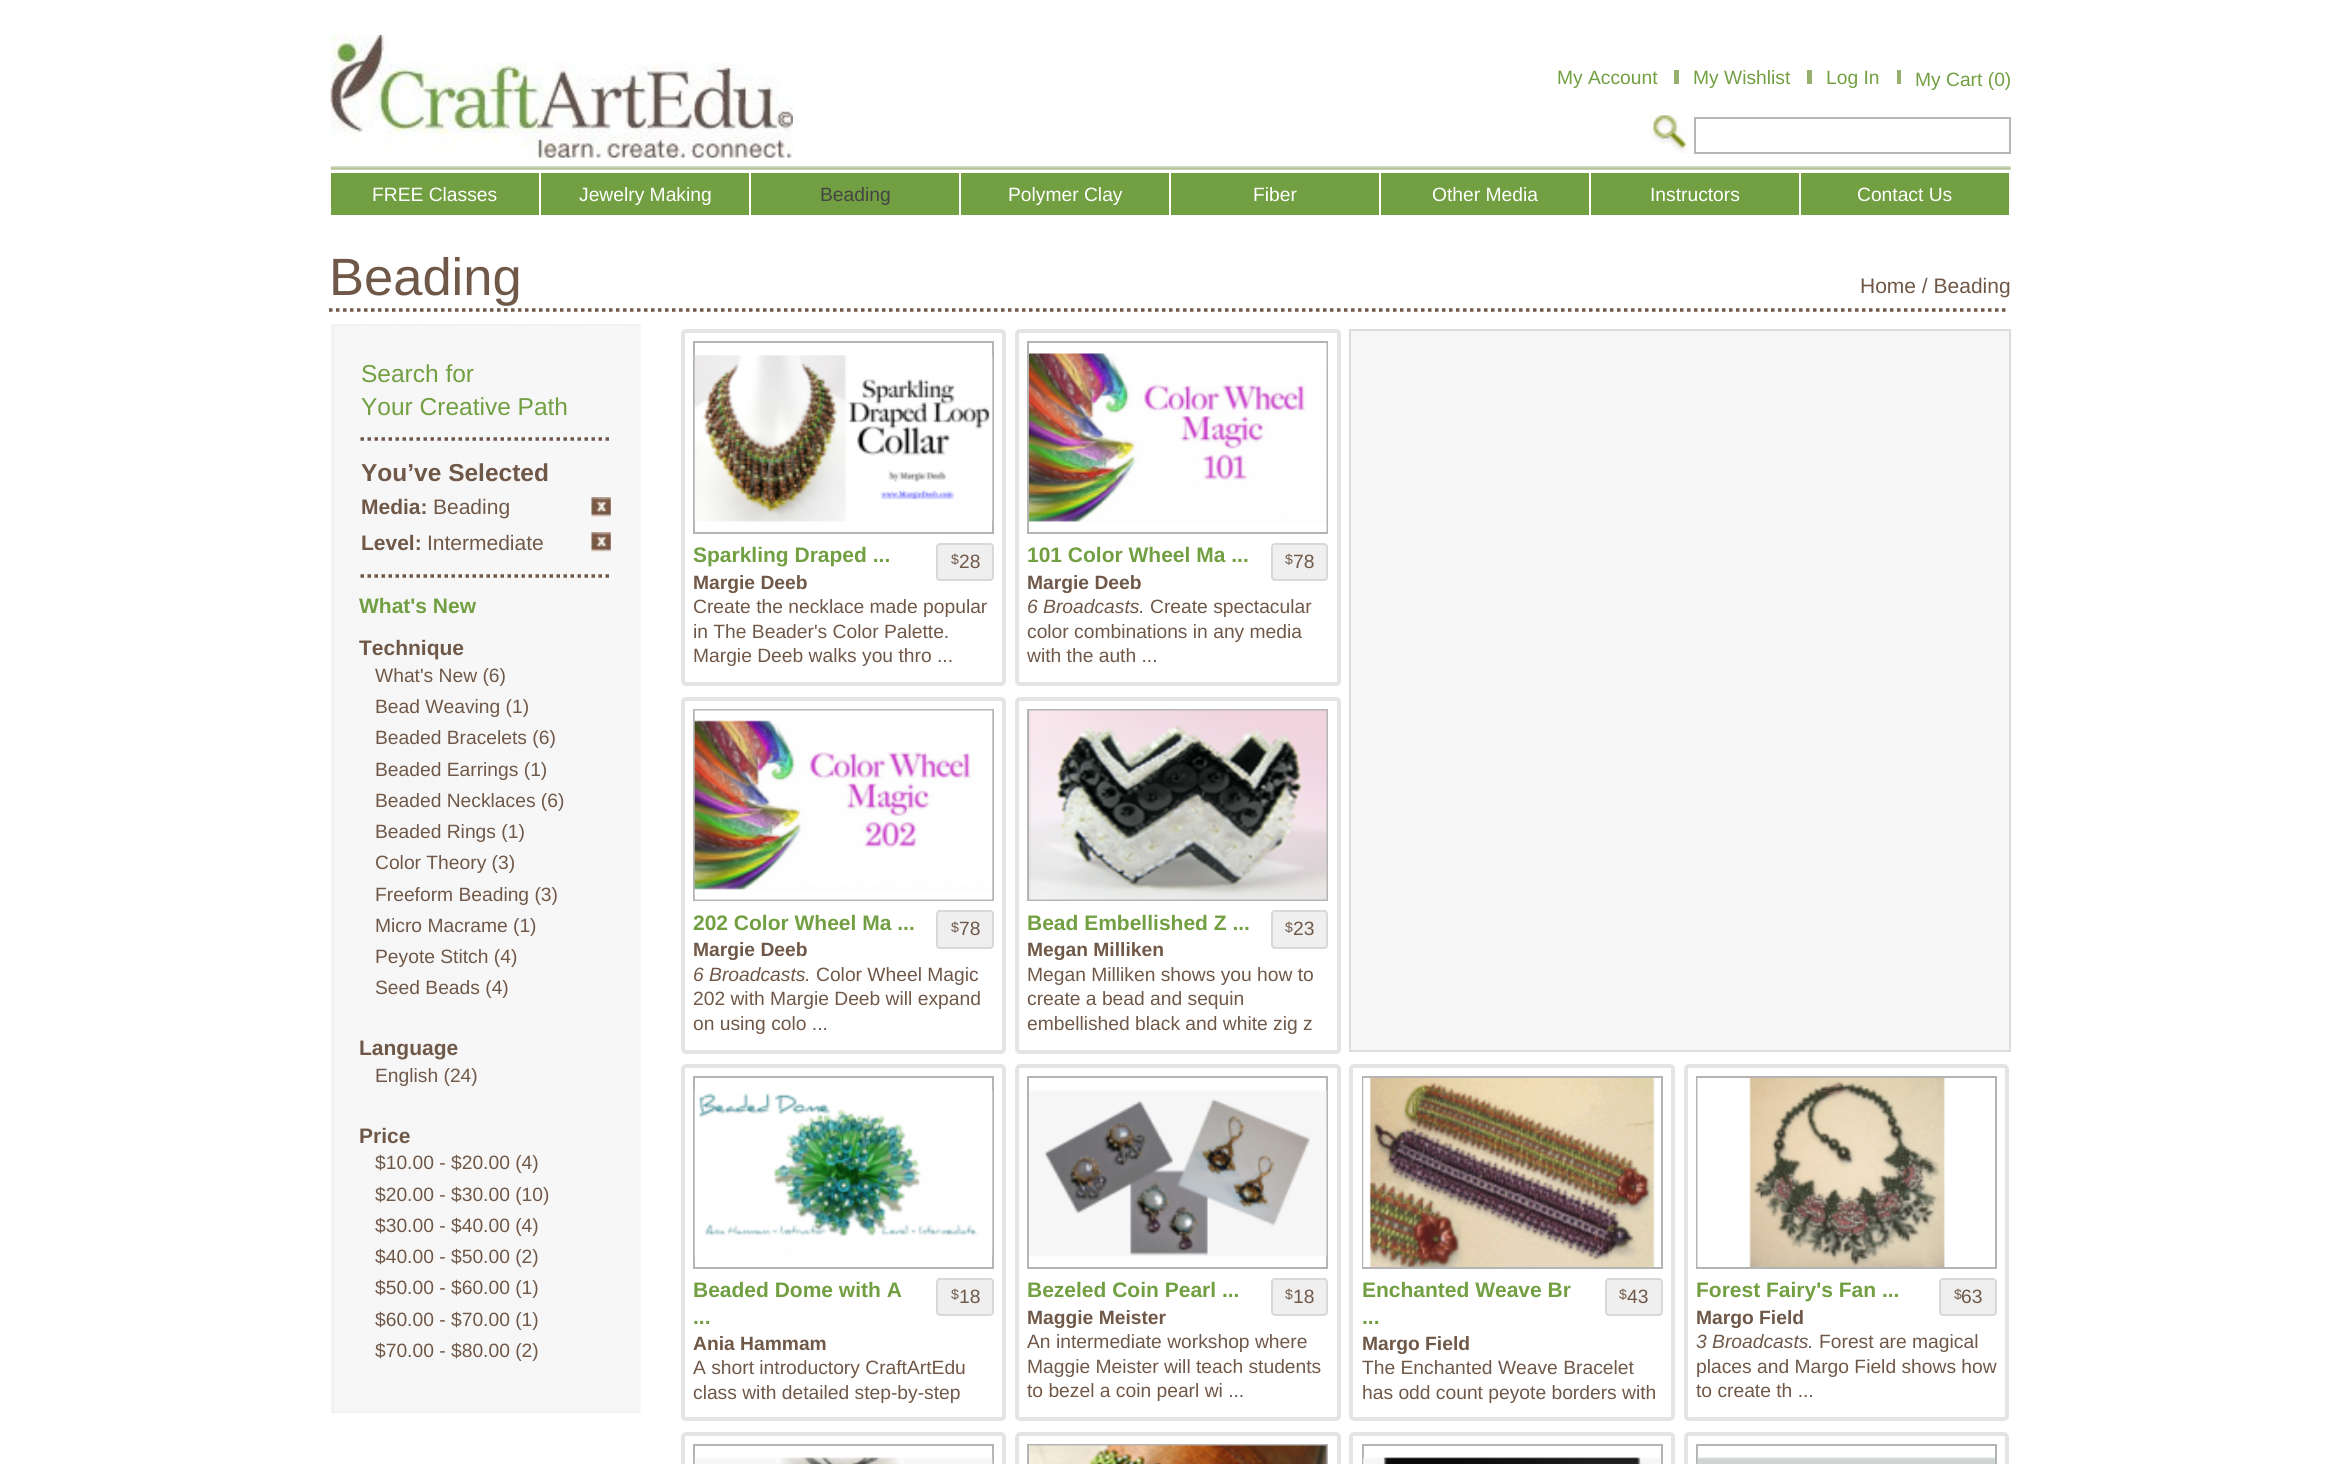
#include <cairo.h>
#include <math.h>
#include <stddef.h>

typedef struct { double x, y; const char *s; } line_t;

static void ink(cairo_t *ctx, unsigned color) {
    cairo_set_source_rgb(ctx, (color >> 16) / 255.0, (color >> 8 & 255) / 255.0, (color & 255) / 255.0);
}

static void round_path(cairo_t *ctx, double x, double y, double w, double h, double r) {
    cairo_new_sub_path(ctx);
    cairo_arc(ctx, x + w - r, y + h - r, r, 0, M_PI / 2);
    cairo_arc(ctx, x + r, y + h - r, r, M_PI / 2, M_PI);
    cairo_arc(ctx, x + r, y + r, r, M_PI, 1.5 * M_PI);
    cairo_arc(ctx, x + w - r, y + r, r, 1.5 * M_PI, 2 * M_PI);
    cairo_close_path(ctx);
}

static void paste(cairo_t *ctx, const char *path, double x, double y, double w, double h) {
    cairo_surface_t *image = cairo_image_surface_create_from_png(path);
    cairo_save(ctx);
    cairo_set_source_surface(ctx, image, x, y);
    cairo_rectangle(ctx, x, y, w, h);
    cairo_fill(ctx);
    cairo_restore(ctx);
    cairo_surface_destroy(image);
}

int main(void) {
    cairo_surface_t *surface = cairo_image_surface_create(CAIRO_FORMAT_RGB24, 2340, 1464);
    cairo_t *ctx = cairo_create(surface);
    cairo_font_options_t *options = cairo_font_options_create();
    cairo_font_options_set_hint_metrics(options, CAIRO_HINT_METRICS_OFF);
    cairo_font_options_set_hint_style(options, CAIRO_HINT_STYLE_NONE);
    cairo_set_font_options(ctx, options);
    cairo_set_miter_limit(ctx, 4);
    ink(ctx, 0xFFFFFF);
    cairo_paint(ctx);
    paste(ctx, "media/1.png", 330, 35, 463, 123);
    cairo_select_font_face(ctx, "Liberation Sans", CAIRO_FONT_SLANT_NORMAL, CAIRO_FONT_WEIGHT_NORMAL);
    cairo_set_font_size(ctx, 19.25);
    ink(ctx, 0x729F42);
    cairo_move_to(ctx, 1557, 84);
    cairo_show_text(ctx, "My Account");
    cairo_move_to(ctx, 1693, 84);
    cairo_show_text(ctx, "My Wishlist");
    ink(ctx, 0x96AF6D);
    cairo_rectangle(ctx, 1674, 70, 5, 14);
    cairo_fill(ctx);
    ink(ctx, 0x729F42);
    cairo_move_to(ctx, 1826, 84);
    cairo_show_text(ctx, "Log In");
    ink(ctx, 0x96AF6D);
    cairo_rectangle(ctx, 1807, 70, 5, 14);
    cairo_fill(ctx);
    cairo_rectangle(ctx, 1897, 70, 4, 14);
    cairo_fill(ctx);
    ink(ctx, 0x729F42);
    cairo_move_to(ctx, 1915, 86);
    cairo_show_text(ctx, "My Cart (0)");
    paste(ctx, "media/2.png", 1650, 115, 39, 39);
    cairo_rectangle(ctx, 1695, 118, 315, 35);
    ink(ctx, 0xB6B6B6);
    cairo_stroke(ctx);
    paste(ctx, "media/3.png", 330, 166, 1681, 4);
    ink(ctx, 0x729F42);
    cairo_rectangle(ctx, 331, 173, 208, 42);
    cairo_fill(ctx);
    ink(ctx, 0xFFFFFF);
    cairo_move_to(ctx, 372, 201);
    cairo_show_text(ctx, "FREE Classes");
    ink(ctx, 0x729F42);
    cairo_rectangle(ctx, 541, 173, 208, 42);
    cairo_fill(ctx);
    ink(ctx, 0xFFFFFF);
    cairo_move_to(ctx, 579, 201);
    cairo_show_text(ctx, "Jewelry Making");
    ink(ctx, 0x729F42);
    cairo_rectangle(ctx, 751, 173, 208, 42);
    cairo_fill(ctx);
    ink(ctx, 0x444444);
    cairo_move_to(ctx, 820, 201);
    cairo_show_text(ctx, "Beading");
    ink(ctx, 0x729F42);
    cairo_rectangle(ctx, 961, 173, 208, 42);
    cairo_fill(ctx);
    ink(ctx, 0xFFFFFF);
    cairo_move_to(ctx, 1008, 201);
    cairo_show_text(ctx, "Polymer Clay");
    ink(ctx, 0x729F42);
    cairo_rectangle(ctx, 1171, 173, 208, 42);
    cairo_fill(ctx);
    ink(ctx, 0xFFFFFF);
    cairo_move_to(ctx, 1253, 201);
    cairo_show_text(ctx, "Fiber");
    ink(ctx, 0x729F42);
    cairo_rectangle(ctx, 1381, 173, 208, 42);
    cairo_fill(ctx);
    ink(ctx, 0xFFFFFF);
    cairo_move_to(ctx, 1432, 201);
    cairo_show_text(ctx, "Other Media");
    ink(ctx, 0x729F42);
    cairo_rectangle(ctx, 1591, 173, 208, 42);
    cairo_fill(ctx);
    ink(ctx, 0xFFFFFF);
    cairo_move_to(ctx, 1650, 201);
    cairo_show_text(ctx, "Instructors");
    ink(ctx, 0x729F42);
    cairo_rectangle(ctx, 1801, 173, 208, 42);
    cairo_fill(ctx);
    ink(ctx, 0xFFFFFF);
    cairo_move_to(ctx, 1857, 201);
    cairo_show_text(ctx, "Contact Us");
    cairo_new_path(ctx);
    cairo_move_to(ctx, 329, 310);
    cairo_line_to(ctx, 2009, 310);
    ink(ctx, 0x6F5848);
    cairo_set_line_width(ctx, 3.5);
    cairo_set_dash(ctx, (double[]){3.5, 3.5}, 2, 0);
    cairo_stroke(ctx);
    cairo_set_font_size(ctx, 52.5);
    cairo_move_to(ctx, 329, 295);
    cairo_show_text(ctx, "Beading");
    cairo_set_font_size(ctx, 21);
    cairo_move_to(ctx, 1860, 293);
    cairo_show_text(ctx, "Home / Beading");
    round_path(ctx, 683, 331, 321, 353, 3);
    ink(ctx, 0xE6E4E3);
    cairo_set_line_width(ctx, 4);
    cairo_set_dash(ctx, NULL, 0, 0);
    cairo_stroke(ctx);
    cairo_rectangle(ctx, 694, 342, 299, 191);
    ink(ctx, 0xB4B4B4);
    cairo_set_line_width(ctx, 2);
    cairo_stroke(ctx);
    paste(ctx, "media/4.png", 694, 355, 299, 167);
    cairo_select_font_face(ctx, "Liberation Sans", CAIRO_FONT_SLANT_NORMAL, CAIRO_FONT_WEIGHT_BOLD);
    ink(ctx, 0x729F42);
    cairo_move_to(ctx, 693, 562);
    cairo_show_text(ctx, "Sparkling Draped ...");
    cairo_set_font_size(ctx, 19.25);
    ink(ctx, 0x6F5848);
    cairo_move_to(ctx, 693, 589);
    cairo_show_text(ctx, "Margie Deeb");
    ink(ctx, 0xEFEFEF);
    round_path(ctx, 937, 544, 56, 36, 3);
    cairo_fill_preserve(ctx);
    ink(ctx, 0xD8D8D8);
    cairo_stroke(ctx);
    cairo_select_font_face(ctx, "Liberation Sans", CAIRO_FONT_SLANT_NORMAL, CAIRO_FONT_WEIGHT_NORMAL);
    cairo_set_font_size(ctx, 14);
    ink(ctx, 0x6F5848);
    cairo_move_to(ctx, 951, 564);
    cairo_show_text(ctx, "$");
    cairo_set_font_size(ctx, 19.25);
    {
        static const line_t items[] = {
            {959, 568, "28"},
            {693, 613, "Create the necklace made popular"},
            {693, 638, "in The Beader's Color Palette."},
            {693, 662, "Margie Deeb walks you thro ..."},
        };
        for (size_t i = 0; i < sizeof items / sizeof *items; i++) {
            cairo_move_to(ctx, items[i].x, items[i].y);
            cairo_show_text(ctx, items[i].s);
        }
    }
    round_path(ctx, 1017, 331, 322, 353, 3);
    ink(ctx, 0xE6E4E3);
    cairo_set_line_width(ctx, 4);
    cairo_stroke(ctx);
    cairo_rectangle(ctx, 1028, 342, 299, 191);
    ink(ctx, 0xB4B4B4);
    cairo_set_line_width(ctx, 2);
    cairo_stroke(ctx);
    paste(ctx, "media/5.png", 1029, 343, 298, 189);
    cairo_select_font_face(ctx, "Liberation Sans", CAIRO_FONT_SLANT_NORMAL, CAIRO_FONT_WEIGHT_BOLD);
    cairo_set_font_size(ctx, 21);
    ink(ctx, 0x729F42);
    cairo_move_to(ctx, 1027, 562);
    cairo_show_text(ctx, "101 Color Wheel Ma ...");
    cairo_set_font_size(ctx, 19.25);
    ink(ctx, 0x6F5848);
    cairo_move_to(ctx, 1027, 589);
    cairo_show_text(ctx, "Margie Deeb");
    ink(ctx, 0xEFEFEF);
    round_path(ctx, 1272, 544, 55, 36, 3);
    cairo_fill_preserve(ctx);
    ink(ctx, 0xD8D8D8);
    cairo_stroke(ctx);
    cairo_select_font_face(ctx, "Liberation Sans", CAIRO_FONT_SLANT_NORMAL, CAIRO_FONT_WEIGHT_NORMAL);
    cairo_set_font_size(ctx, 14);
    ink(ctx, 0x6F5848);
    cairo_move_to(ctx, 1285, 564);
    cairo_show_text(ctx, "$");
    cairo_set_font_size(ctx, 19.25);
    cairo_move_to(ctx, 1293, 568);
    cairo_show_text(ctx, "78");
    cairo_select_font_face(ctx, "Liberation Sans", CAIRO_FONT_SLANT_ITALIC, CAIRO_FONT_WEIGHT_NORMAL);
    cairo_move_to(ctx, 1027, 613);
    cairo_show_text(ctx, "6 Broadcasts.");
    cairo_select_font_face(ctx, "Liberation Sans", CAIRO_FONT_SLANT_NORMAL, CAIRO_FONT_WEIGHT_NORMAL);
    {
        static const line_t items[] = {
            {1150, 613, "Create spectacular"},
            {1027, 638, "color combinations in any media"},
            {1027, 662, "with the auth ..."},
        };
        for (size_t i = 0; i < sizeof items / sizeof *items; i++) {
            cairo_move_to(ctx, items[i].x, items[i].y);
            cairo_show_text(ctx, items[i].s);
        }
    }
    round_path(ctx, 683, 699, 321, 353, 3);
    ink(ctx, 0xE6E4E3);
    cairo_set_line_width(ctx, 4);
    cairo_stroke(ctx);
    cairo_rectangle(ctx, 694, 710, 299, 190);
    ink(ctx, 0xB4B4B4);
    cairo_set_line_width(ctx, 2);
    cairo_stroke(ctx);
    paste(ctx, "media/6.png", 694, 710, 299, 190);
    cairo_select_font_face(ctx, "Liberation Sans", CAIRO_FONT_SLANT_NORMAL, CAIRO_FONT_WEIGHT_BOLD);
    cairo_set_font_size(ctx, 21);
    ink(ctx, 0x729F42);
    cairo_move_to(ctx, 693, 930);
    cairo_show_text(ctx, "202 Color Wheel Ma ...");
    cairo_set_font_size(ctx, 19.25);
    ink(ctx, 0x6F5848);
    cairo_move_to(ctx, 693, 956);
    cairo_show_text(ctx, "Margie Deeb");
    ink(ctx, 0xEFEFEF);
    round_path(ctx, 937, 911, 56, 37, 3);
    cairo_fill_preserve(ctx);
    ink(ctx, 0xD8D8D8);
    cairo_stroke(ctx);
    cairo_select_font_face(ctx, "Liberation Sans", CAIRO_FONT_SLANT_NORMAL, CAIRO_FONT_WEIGHT_NORMAL);
    cairo_set_font_size(ctx, 14);
    ink(ctx, 0x6F5848);
    cairo_move_to(ctx, 951, 932);
    cairo_show_text(ctx, "$");
    cairo_set_font_size(ctx, 19.25);
    cairo_move_to(ctx, 959, 935);
    cairo_show_text(ctx, "78");
    cairo_select_font_face(ctx, "Liberation Sans", CAIRO_FONT_SLANT_ITALIC, CAIRO_FONT_WEIGHT_NORMAL);
    cairo_move_to(ctx, 693, 981);
    cairo_show_text(ctx, "6 Broadcasts.");
    cairo_select_font_face(ctx, "Liberation Sans", CAIRO_FONT_SLANT_NORMAL, CAIRO_FONT_WEIGHT_NORMAL);
    {
        static const line_t items[] = {
            {816, 981, "Color Wheel Magic"},
            {693, 1005, "202 with Margie Deeb will expand"},
            {693, 1030, "on using colo ..."},
        };
        for (size_t i = 0; i < sizeof items / sizeof *items; i++) {
            cairo_move_to(ctx, items[i].x, items[i].y);
            cairo_show_text(ctx, items[i].s);
        }
    }
    round_path(ctx, 1017, 699, 322, 353, 3);
    ink(ctx, 0xE6E4E3);
    cairo_set_line_width(ctx, 4);
    cairo_stroke(ctx);
    cairo_rectangle(ctx, 1028, 710, 299, 190);
    ink(ctx, 0xB4B4B4);
    cairo_set_line_width(ctx, 2);
    cairo_stroke(ctx);
    paste(ctx, "media/7.png", 1029, 710, 298, 190);
    cairo_select_font_face(ctx, "Liberation Sans", CAIRO_FONT_SLANT_NORMAL, CAIRO_FONT_WEIGHT_BOLD);
    cairo_set_font_size(ctx, 21);
    ink(ctx, 0x729F42);
    cairo_move_to(ctx, 1027, 930);
    cairo_show_text(ctx, "Bead Embellished Z ...");
    cairo_set_font_size(ctx, 19.25);
    ink(ctx, 0x6F5848);
    cairo_move_to(ctx, 1027, 956);
    cairo_show_text(ctx, "Megan Milliken");
    ink(ctx, 0xEFEFEF);
    round_path(ctx, 1272, 911, 55, 37, 3);
    cairo_fill_preserve(ctx);
    ink(ctx, 0xD8D8D8);
    cairo_stroke(ctx);
    cairo_select_font_face(ctx, "Liberation Sans", CAIRO_FONT_SLANT_NORMAL, CAIRO_FONT_WEIGHT_NORMAL);
    cairo_set_font_size(ctx, 14);
    ink(ctx, 0x6F5848);
    cairo_move_to(ctx, 1285, 932);
    cairo_show_text(ctx, "$");
    cairo_set_font_size(ctx, 19.25);
    {
        static const line_t items[] = {
            {1293, 935, "23"},
            {1027, 981, "Megan Milliken shows you how to"},
            {1027, 1005, "create a bead and sequin"},
            {1027, 1030, "embellished black and white zig z"},
        };
        for (size_t i = 0; i < sizeof items / sizeof *items; i++) {
            cairo_move_to(ctx, items[i].x, items[i].y);
            cairo_show_text(ctx, items[i].s);
        }
    }
    ink(ctx, 0xF6F6F6);
    cairo_rectangle(ctx, 1350, 330, 660, 721);
    cairo_fill_preserve(ctx);
    ink(ctx, 0xDFDDDC);
    cairo_stroke(ctx);
    round_path(ctx, 683, 1066, 321, 353, 3);
    ink(ctx, 0xE6E4E3);
    cairo_set_line_width(ctx, 4);
    cairo_stroke(ctx);
    cairo_rectangle(ctx, 694, 1077, 299, 191);
    ink(ctx, 0xB4B4B4);
    cairo_set_line_width(ctx, 2);
    cairo_stroke(ctx);
    paste(ctx, "media/8.png", 694, 1090, 299, 167);
    cairo_select_font_face(ctx, "Liberation Sans", CAIRO_FONT_SLANT_NORMAL, CAIRO_FONT_WEIGHT_BOLD);
    cairo_set_font_size(ctx, 21);
    ink(ctx, 0x729F42);
    cairo_move_to(ctx, 693, 1297);
    cairo_show_text(ctx, "Beaded Dome with A");
    cairo_move_to(ctx, 693, 1324);
    cairo_show_text(ctx, "...");
    cairo_set_font_size(ctx, 19.25);
    ink(ctx, 0x6F5848);
    cairo_move_to(ctx, 693, 1350);
    cairo_show_text(ctx, "Ania Hammam");
    ink(ctx, 0xEFEFEF);
    round_path(ctx, 937, 1279, 56, 36, 3);
    cairo_fill_preserve(ctx);
    ink(ctx, 0xD8D8D8);
    cairo_stroke(ctx);
    cairo_select_font_face(ctx, "Liberation Sans", CAIRO_FONT_SLANT_NORMAL, CAIRO_FONT_WEIGHT_NORMAL);
    cairo_set_font_size(ctx, 14);
    ink(ctx, 0x6F5848);
    cairo_move_to(ctx, 951, 1299);
    cairo_show_text(ctx, "$");
    cairo_set_font_size(ctx, 19.25);
    {
        static const line_t items[] = {
            {959, 1303, "18"},
            {693, 1374, "A short introductory CraftArtEdu"},
            {693, 1399, "class with detailed step-by-step"},
        };
        for (size_t i = 0; i < sizeof items / sizeof *items; i++) {
            cairo_move_to(ctx, items[i].x, items[i].y);
            cairo_show_text(ctx, items[i].s);
        }
    }
    round_path(ctx, 1017, 1066, 322, 353, 3);
    ink(ctx, 0xE6E4E3);
    cairo_set_line_width(ctx, 4);
    cairo_stroke(ctx);
    cairo_rectangle(ctx, 1028, 1077, 299, 191);
    ink(ctx, 0xB4B4B4);
    cairo_set_line_width(ctx, 2);
    cairo_stroke(ctx);
    paste(ctx, "media/9.png", 1029, 1090, 298, 167);
    cairo_select_font_face(ctx, "Liberation Sans", CAIRO_FONT_SLANT_NORMAL, CAIRO_FONT_WEIGHT_BOLD);
    cairo_set_font_size(ctx, 21);
    ink(ctx, 0x729F42);
    cairo_move_to(ctx, 1027, 1297);
    cairo_show_text(ctx, "Bezeled Coin Pearl ...");
    cairo_set_font_size(ctx, 19.25);
    ink(ctx, 0x6F5848);
    cairo_move_to(ctx, 1027, 1324);
    cairo_show_text(ctx, "Maggie Meister");
    ink(ctx, 0xEFEFEF);
    round_path(ctx, 1272, 1279, 55, 36, 3);
    cairo_fill_preserve(ctx);
    ink(ctx, 0xD8D8D8);
    cairo_stroke(ctx);
    cairo_select_font_face(ctx, "Liberation Sans", CAIRO_FONT_SLANT_NORMAL, CAIRO_FONT_WEIGHT_NORMAL);
    cairo_set_font_size(ctx, 14);
    ink(ctx, 0x6F5848);
    cairo_move_to(ctx, 1285, 1299);
    cairo_show_text(ctx, "$");
    cairo_set_font_size(ctx, 19.25);
    {
        static const line_t items[] = {
            {1293, 1303, "18"},
            {1027, 1348, "An intermediate workshop where"},
            {1027, 1373, "Maggie Meister will teach students"},
            {1027, 1397, "to bezel a coin pearl wi ..."},
        };
        for (size_t i = 0; i < sizeof items / sizeof *items; i++) {
            cairo_move_to(ctx, items[i].x, items[i].y);
            cairo_show_text(ctx, items[i].s);
        }
    }
    round_path(ctx, 1351, 1066, 322, 353, 3);
    ink(ctx, 0xE6E4E3);
    cairo_set_line_width(ctx, 4);
    cairo_stroke(ctx);
    cairo_rectangle(ctx, 1363, 1077, 299, 191);
    ink(ctx, 0xB4B4B4);
    cairo_set_line_width(ctx, 2);
    cairo_stroke(ctx);
    paste(ctx, "media/10.png", 1363, 1078, 292, 189);
    cairo_select_font_face(ctx, "Liberation Sans", CAIRO_FONT_SLANT_NORMAL, CAIRO_FONT_WEIGHT_BOLD);
    cairo_set_font_size(ctx, 21);
    ink(ctx, 0x729F42);
    cairo_move_to(ctx, 1362, 1297);
    cairo_show_text(ctx, "Enchanted Weave Br");
    cairo_move_to(ctx, 1362, 1324);
    cairo_show_text(ctx, "...");
    cairo_set_font_size(ctx, 19.25);
    ink(ctx, 0x6F5848);
    cairo_move_to(ctx, 1362, 1350);
    cairo_show_text(ctx, "Margo Field");
    ink(ctx, 0xEFEFEF);
    round_path(ctx, 1606, 1279, 56, 36, 3);
    cairo_fill_preserve(ctx);
    ink(ctx, 0xD8D8D8);
    cairo_stroke(ctx);
    cairo_select_font_face(ctx, "Liberation Sans", CAIRO_FONT_SLANT_NORMAL, CAIRO_FONT_WEIGHT_NORMAL);
    cairo_set_font_size(ctx, 14);
    ink(ctx, 0x6F5848);
    cairo_move_to(ctx, 1619, 1299);
    cairo_show_text(ctx, "$");
    cairo_set_font_size(ctx, 19.25);
    {
        static const line_t items[] = {
            {1627, 1303, "43"},
            {1362, 1374, "The Enchanted Weave Bracelet"},
            {1362, 1399, "has odd count peyote borders with"},
        };
        for (size_t i = 0; i < sizeof items / sizeof *items; i++) {
            cairo_move_to(ctx, items[i].x, items[i].y);
            cairo_show_text(ctx, items[i].s);
        }
    }
    round_path(ctx, 1686, 1066, 321, 353, 3);
    ink(ctx, 0xE6E4E3);
    cairo_set_line_width(ctx, 4);
    cairo_stroke(ctx);
    cairo_rectangle(ctx, 1697, 1077, 299, 191);
    ink(ctx, 0xB4B4B4);
    cairo_set_line_width(ctx, 2);
    cairo_stroke(ctx);
    paste(ctx, "media/11.png", 1697, 1078, 248, 189);
    cairo_select_font_face(ctx, "Liberation Sans", CAIRO_FONT_SLANT_NORMAL, CAIRO_FONT_WEIGHT_BOLD);
    cairo_set_font_size(ctx, 21);
    ink(ctx, 0x729F42);
    cairo_move_to(ctx, 1696, 1297);
    cairo_show_text(ctx, "Forest Fairy's Fan ...");
    cairo_set_font_size(ctx, 19.25);
    ink(ctx, 0x6F5848);
    cairo_move_to(ctx, 1696, 1324);
    cairo_show_text(ctx, "Margo Field");
    ink(ctx, 0xEFEFEF);
    round_path(ctx, 1940, 1279, 56, 36, 3);
    cairo_fill_preserve(ctx);
    ink(ctx, 0xD8D8D8);
    cairo_stroke(ctx);
    cairo_select_font_face(ctx, "Liberation Sans", CAIRO_FONT_SLANT_NORMAL, CAIRO_FONT_WEIGHT_NORMAL);
    cairo_set_font_size(ctx, 14);
    ink(ctx, 0x6F5848);
    cairo_move_to(ctx, 1954, 1299);
    cairo_show_text(ctx, "$");
    cairo_set_font_size(ctx, 19.25);
    cairo_move_to(ctx, 1961, 1303);
    cairo_show_text(ctx, "63");
    cairo_select_font_face(ctx, "Liberation Sans", CAIRO_FONT_SLANT_ITALIC, CAIRO_FONT_WEIGHT_NORMAL);
    cairo_move_to(ctx, 1696, 1348);
    cairo_show_text(ctx, "3 Broadcasts.");
    cairo_select_font_face(ctx, "Liberation Sans", CAIRO_FONT_SLANT_NORMAL, CAIRO_FONT_WEIGHT_NORMAL);
    {
        static const line_t items[] = {
            {1819, 1348, "Forest are magical"},
            {1696, 1373, "places and Margo Field shows how"},
            {1696, 1397, "to create th ..."},
        };
        for (size_t i = 0; i < sizeof items / sizeof *items; i++) {
            cairo_move_to(ctx, items[i].x, items[i].y);
            cairo_show_text(ctx, items[i].s);
        }
    }
    round_path(ctx, 683, 1434, 321, 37, 3);
    ink(ctx, 0xE6E4E3);
    cairo_set_line_width(ctx, 4);
    cairo_stroke(ctx);
    cairo_rectangle(ctx, 694, 1445, 299, 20);
    ink(ctx, 0xB4B4B4);
    cairo_set_line_width(ctx, 2);
    cairo_stroke(ctx);
    paste(ctx, "media/12.png", 694, 1457, 299, 7);
    round_path(ctx, 1017, 1434, 322, 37, 3);
    ink(ctx, 0xE6E4E3);
    cairo_set_line_width(ctx, 4);
    cairo_stroke(ctx);
    cairo_rectangle(ctx, 1028, 1445, 299, 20);
    ink(ctx, 0xB4B4B4);
    cairo_set_line_width(ctx, 2);
    cairo_stroke(ctx);
    paste(ctx, "media/13.png", 1029, 1445, 298, 19);
    round_path(ctx, 1351, 1434, 322, 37, 3);
    ink(ctx, 0xE6E4E3);
    cairo_set_line_width(ctx, 4);
    cairo_stroke(ctx);
    cairo_rectangle(ctx, 1363, 1445, 299, 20);
    ink(ctx, 0xB4B4B4);
    cairo_set_line_width(ctx, 2);
    cairo_stroke(ctx);
    paste(ctx, "media/14.png", 1363, 1457, 298, 7);
    round_path(ctx, 1686, 1434, 321, 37, 3);
    ink(ctx, 0xE6E4E3);
    cairo_set_line_width(ctx, 4);
    cairo_stroke(ctx);
    cairo_rectangle(ctx, 1697, 1445, 299, 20);
    ink(ctx, 0xB4B4B4);
    cairo_set_line_width(ctx, 2);
    cairo_stroke(ctx);
    paste(ctx, "media/15.png", 1697, 1457, 298, 7);
    paste(ctx, "media/16.png", 331, 326, 310, 1085);
    ink(ctx, 0xF2F2F2);
    cairo_rectangle(ctx, 331, 324, 310, 2);
    cairo_fill(ctx);
    cairo_rectangle(ctx, 331, 1411, 310, 2);
    cairo_fill(ctx);
    cairo_new_path(ctx);
    cairo_move_to(ctx, 360.5, 439);
    cairo_line_to(ctx, 611, 439);
    ink(ctx, 0x6F5848);
    cairo_set_line_width(ctx, 3.5);
    cairo_set_dash(ctx, (double[]){3.5, 3.5}, 2, 0);
    cairo_stroke(ctx);
    cairo_set_font_size(ctx, 24.5);
    ink(ctx, 0x729F42);
    cairo_move_to(ctx, 361, 382);
    cairo_show_text(ctx, "Search for");
    cairo_move_to(ctx, 361, 415);
    cairo_show_text(ctx, "Your Creative Path");
    cairo_select_font_face(ctx, "Liberation Sans", CAIRO_FONT_SLANT_NORMAL, CAIRO_FONT_WEIGHT_BOLD);
    ink(ctx, 0x6F5848);
    cairo_move_to(ctx, 361, 481);
    cairo_show_text(ctx, "You’ve Selected");
    cairo_new_path(ctx);
    cairo_move_to(ctx, 360.5, 576);
    cairo_line_to(ctx, 611, 576);
    cairo_stroke(ctx);
    cairo_set_font_size(ctx, 21);
    cairo_move_to(ctx, 361, 514);
    cairo_show_text(ctx, "Media:");
    cairo_select_font_face(ctx, "Liberation Sans", CAIRO_FONT_SLANT_NORMAL, CAIRO_FONT_WEIGHT_NORMAL);
    cairo_move_to(ctx, 433, 514);
    cairo_show_text(ctx, "Beading");
    paste(ctx, "media/17.png", 591, 497, 20, 20);
    cairo_select_font_face(ctx, "Liberation Sans", CAIRO_FONT_SLANT_NORMAL, CAIRO_FONT_WEIGHT_BOLD);
    cairo_move_to(ctx, 361, 550);
    cairo_show_text(ctx, "Level:");
    cairo_select_font_face(ctx, "Liberation Sans", CAIRO_FONT_SLANT_NORMAL, CAIRO_FONT_WEIGHT_NORMAL);
    cairo_move_to(ctx, 427, 550);
    cairo_show_text(ctx, "Intermediate");
    paste(ctx, "media/17.png", 591, 532, 20, 20);
    cairo_select_font_face(ctx, "Liberation Sans", CAIRO_FONT_SLANT_NORMAL, CAIRO_FONT_WEIGHT_BOLD);
    ink(ctx, 0x729F42);
    cairo_move_to(ctx, 359, 613);
    cairo_show_text(ctx, "What's New");
    ink(ctx, 0x6F5848);
    cairo_move_to(ctx, 359, 655);
    cairo_show_text(ctx, "Technique");
    cairo_select_font_face(ctx, "Liberation Sans", CAIRO_FONT_SLANT_NORMAL, CAIRO_FONT_WEIGHT_NORMAL);
    cairo_set_font_size(ctx, 19.25);
    {
        static const line_t items[] = {
            {375, 682, "What's New (6)"},
            {375, 713, "Bead Weaving (1)"},
            {375, 744, "Beaded Bracelets (6)"},
            {375, 776, "Beaded Earrings (1)"},
            {375, 807, "Beaded Necklaces (6)"},
            {375, 838, "Beaded Rings (1)"},
            {375, 869, "Color Theory (3)"},
            {375, 901, "Freeform Beading (3)"},
            {375, 932, "Micro Macrame (1)"},
            {375, 963, "Peyote Stitch (4)"},
            {375, 994, "Seed Beads (4)"},
        };
        for (size_t i = 0; i < sizeof items / sizeof *items; i++) {
            cairo_move_to(ctx, items[i].x, items[i].y);
            cairo_show_text(ctx, items[i].s);
        }
    }
    cairo_select_font_face(ctx, "Liberation Sans", CAIRO_FONT_SLANT_NORMAL, CAIRO_FONT_WEIGHT_BOLD);
    cairo_set_font_size(ctx, 21);
    cairo_move_to(ctx, 359, 1055);
    cairo_show_text(ctx, "Language");
    cairo_select_font_face(ctx, "Liberation Sans", CAIRO_FONT_SLANT_NORMAL, CAIRO_FONT_WEIGHT_NORMAL);
    cairo_set_font_size(ctx, 19.25);
    cairo_move_to(ctx, 375, 1082);
    cairo_show_text(ctx, "English (24)");
    cairo_select_font_face(ctx, "Liberation Sans", CAIRO_FONT_SLANT_NORMAL, CAIRO_FONT_WEIGHT_BOLD);
    cairo_set_font_size(ctx, 21);
    cairo_move_to(ctx, 359, 1143);
    cairo_show_text(ctx, "Price");
    cairo_select_font_face(ctx, "Liberation Sans", CAIRO_FONT_SLANT_NORMAL, CAIRO_FONT_WEIGHT_NORMAL);
    cairo_set_font_size(ctx, 19.25);
    {
        static const line_t items[] = {
            {375, 1169, "$10.00 - $20.00 (4)"},
            {375, 1201, "$20.00 - $30.00 (10)"},
            {375, 1232, "$30.00 - $40.00 (4)"},
            {375, 1263, "$40.00 - $50.00 (2)"},
            {375, 1294, "$50.00 - $60.00 (1)"},
            {375, 1326, "$60.00 - $70.00 (1)"},
            {375, 1357, "$70.00 - $80.00 (2)"},
        };
        for (size_t i = 0; i < sizeof items / sizeof *items; i++) {
            cairo_move_to(ctx, items[i].x, items[i].y);
            cairo_show_text(ctx, items[i].s);
        }
    }
    cairo_surface_write_to_png(surface, "image.png");
    cairo_font_options_destroy(options);
    cairo_destroy(ctx);
    cairo_surface_destroy(surface);
    return 0;
}
